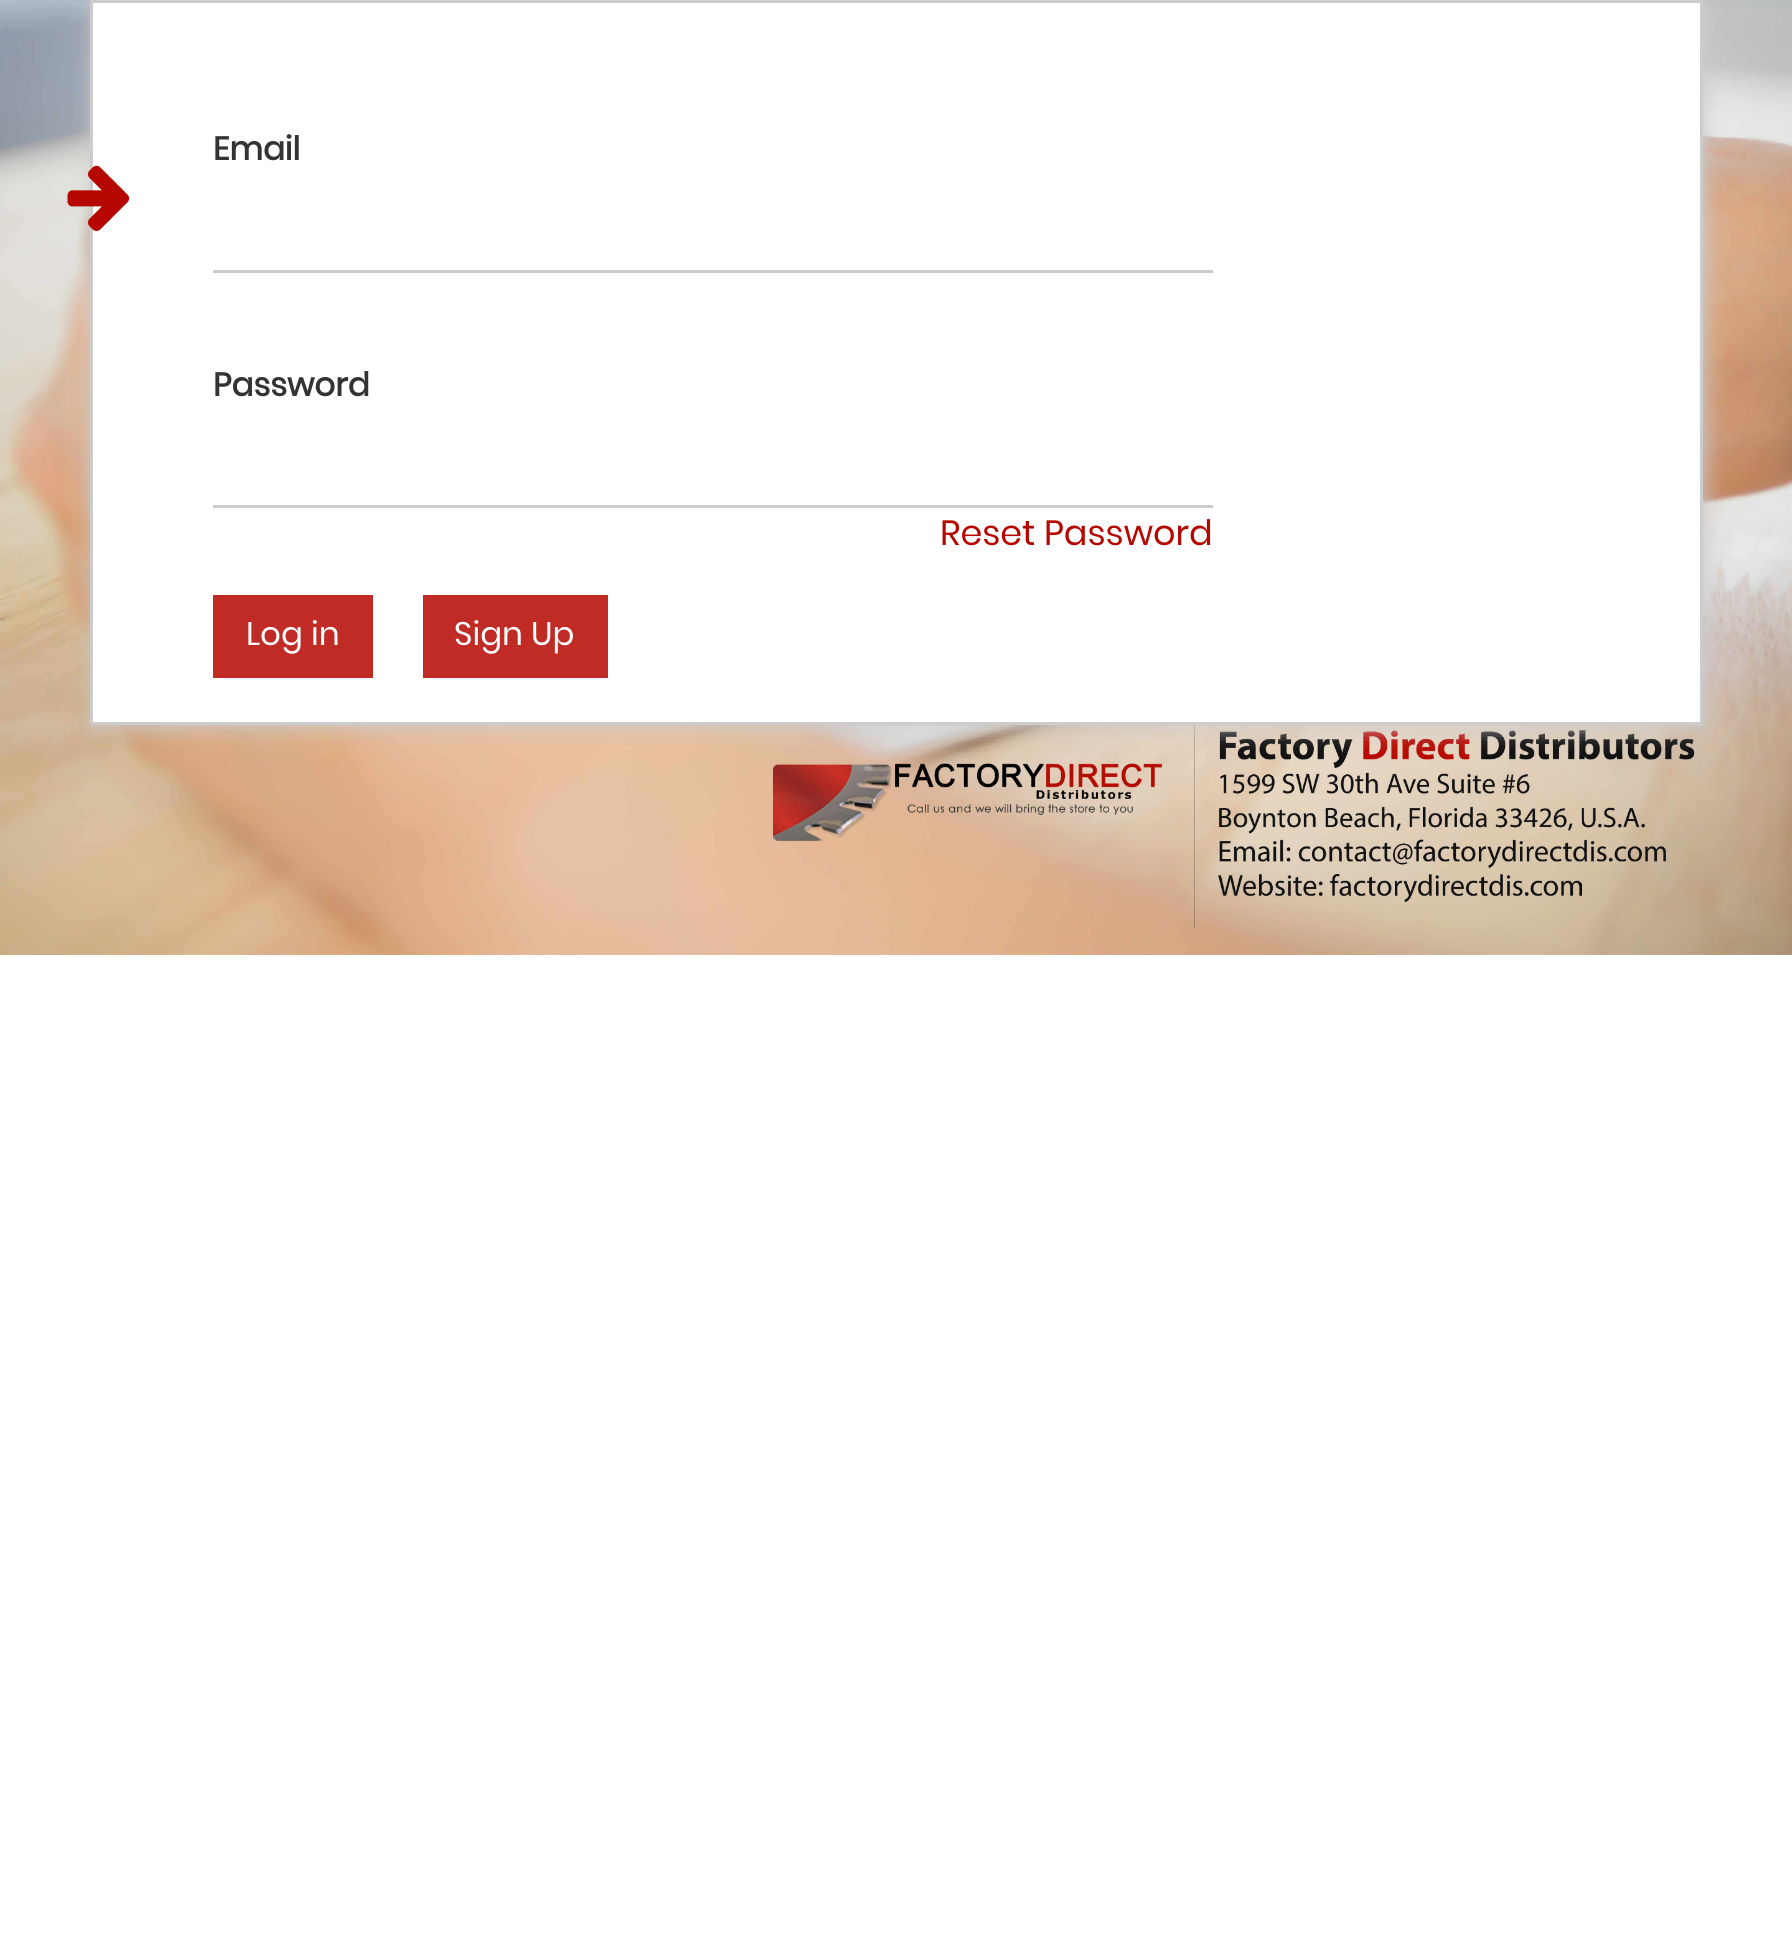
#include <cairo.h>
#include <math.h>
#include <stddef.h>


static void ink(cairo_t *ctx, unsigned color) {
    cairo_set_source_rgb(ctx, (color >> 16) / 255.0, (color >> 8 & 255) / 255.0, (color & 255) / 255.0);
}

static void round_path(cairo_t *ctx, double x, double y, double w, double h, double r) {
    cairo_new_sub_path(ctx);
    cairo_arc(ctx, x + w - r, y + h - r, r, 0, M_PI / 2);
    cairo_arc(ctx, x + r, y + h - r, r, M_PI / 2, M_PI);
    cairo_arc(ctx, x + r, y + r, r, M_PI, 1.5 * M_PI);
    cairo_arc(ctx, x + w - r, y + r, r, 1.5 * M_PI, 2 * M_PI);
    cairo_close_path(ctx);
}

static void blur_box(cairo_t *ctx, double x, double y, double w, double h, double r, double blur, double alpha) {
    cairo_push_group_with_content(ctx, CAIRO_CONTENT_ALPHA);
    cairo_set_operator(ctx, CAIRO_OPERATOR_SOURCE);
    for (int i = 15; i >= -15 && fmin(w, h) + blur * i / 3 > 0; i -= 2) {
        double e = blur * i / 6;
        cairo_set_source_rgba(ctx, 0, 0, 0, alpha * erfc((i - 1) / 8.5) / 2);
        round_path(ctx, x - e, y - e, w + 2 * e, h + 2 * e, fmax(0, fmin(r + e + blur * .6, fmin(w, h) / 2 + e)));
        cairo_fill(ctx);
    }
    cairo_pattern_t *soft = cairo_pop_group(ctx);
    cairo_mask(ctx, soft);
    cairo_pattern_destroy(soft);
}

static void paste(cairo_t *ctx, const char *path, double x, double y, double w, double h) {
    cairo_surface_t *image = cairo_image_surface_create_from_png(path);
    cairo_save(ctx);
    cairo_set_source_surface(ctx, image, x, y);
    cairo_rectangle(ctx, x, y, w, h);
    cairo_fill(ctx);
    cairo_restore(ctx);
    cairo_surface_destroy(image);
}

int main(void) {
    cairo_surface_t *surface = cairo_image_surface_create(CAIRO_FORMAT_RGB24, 1792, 1951);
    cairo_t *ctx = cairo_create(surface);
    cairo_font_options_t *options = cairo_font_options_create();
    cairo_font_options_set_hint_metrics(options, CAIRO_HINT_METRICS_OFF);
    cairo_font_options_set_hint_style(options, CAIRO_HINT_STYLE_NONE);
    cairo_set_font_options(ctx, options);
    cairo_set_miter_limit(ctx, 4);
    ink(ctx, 0xFFFFFF);
    cairo_paint(ctx);
    paste(ctx, "media/1.png", 0, 0, 1792, 955);
    ink(ctx, 0xCCCCCC);
    blur_box(ctx, 93, 3, 1612, 725, 0, 11, 1);
    ink(ctx, 0xFFFFFF);
    cairo_rectangle(ctx, 91.5, 1.5, 1610, 722);
    cairo_fill_preserve(ctx);
    ink(ctx, 0xCCCCCC);
    cairo_set_line_width(ctx, 3);
    cairo_stroke(ctx);
    paste(ctx, "media/2.png", 67, 165, 63, 66);
    cairo_select_font_face(ctx, "Poppins", CAIRO_FONT_SLANT_NORMAL, CAIRO_FONT_WEIGHT_BOLD);
    cairo_set_font_size(ctx, 32.5);
    ink(ctx, 0x333333);
    cairo_move_to(ctx, 213, 160);
    cairo_show_text(ctx, "Email");
    ink(ctx, 0xCCCCCC);
    cairo_rectangle(ctx, 213, 270, 1000, 3);
    cairo_fill(ctx);
    ink(ctx, 0x333333);
    cairo_move_to(ctx, 213, 396);
    cairo_show_text(ctx, "Password");
    ink(ctx, 0xCCCCCC);
    cairo_rectangle(ctx, 213, 505, 1000, 3);
    cairo_fill(ctx);
    cairo_select_font_face(ctx, "Poppins", CAIRO_FONT_SLANT_NORMAL, CAIRO_FONT_WEIGHT_NORMAL);
    cairo_set_font_size(ctx, 35);
    ink(ctx, 0xB60600);
    cairo_move_to(ctx, 940, 545);
    cairo_show_text(ctx, "Reset Password");
    ink(ctx, 0xC12B26);
    cairo_rectangle(ctx, 213, 595, 160, 83);
    cairo_fill(ctx);
    cairo_set_font_size(ctx, 32.5);
    ink(ctx, 0xFFFFFF);
    cairo_move_to(ctx, 246, 645);
    cairo_show_text(ctx, "Log in");
    ink(ctx, 0xC12B26);
    cairo_rectangle(ctx, 423, 595, 185, 83);
    cairo_fill(ctx);
    ink(ctx, 0xFFFFFF);
    cairo_move_to(ctx, 454, 645);
    cairo_show_text(ctx, "Sign Up");
    cairo_surface_write_to_png(surface, "image.png");
    cairo_font_options_destroy(options);
    cairo_destroy(ctx);
    cairo_surface_destroy(surface);
    return 0;
}
